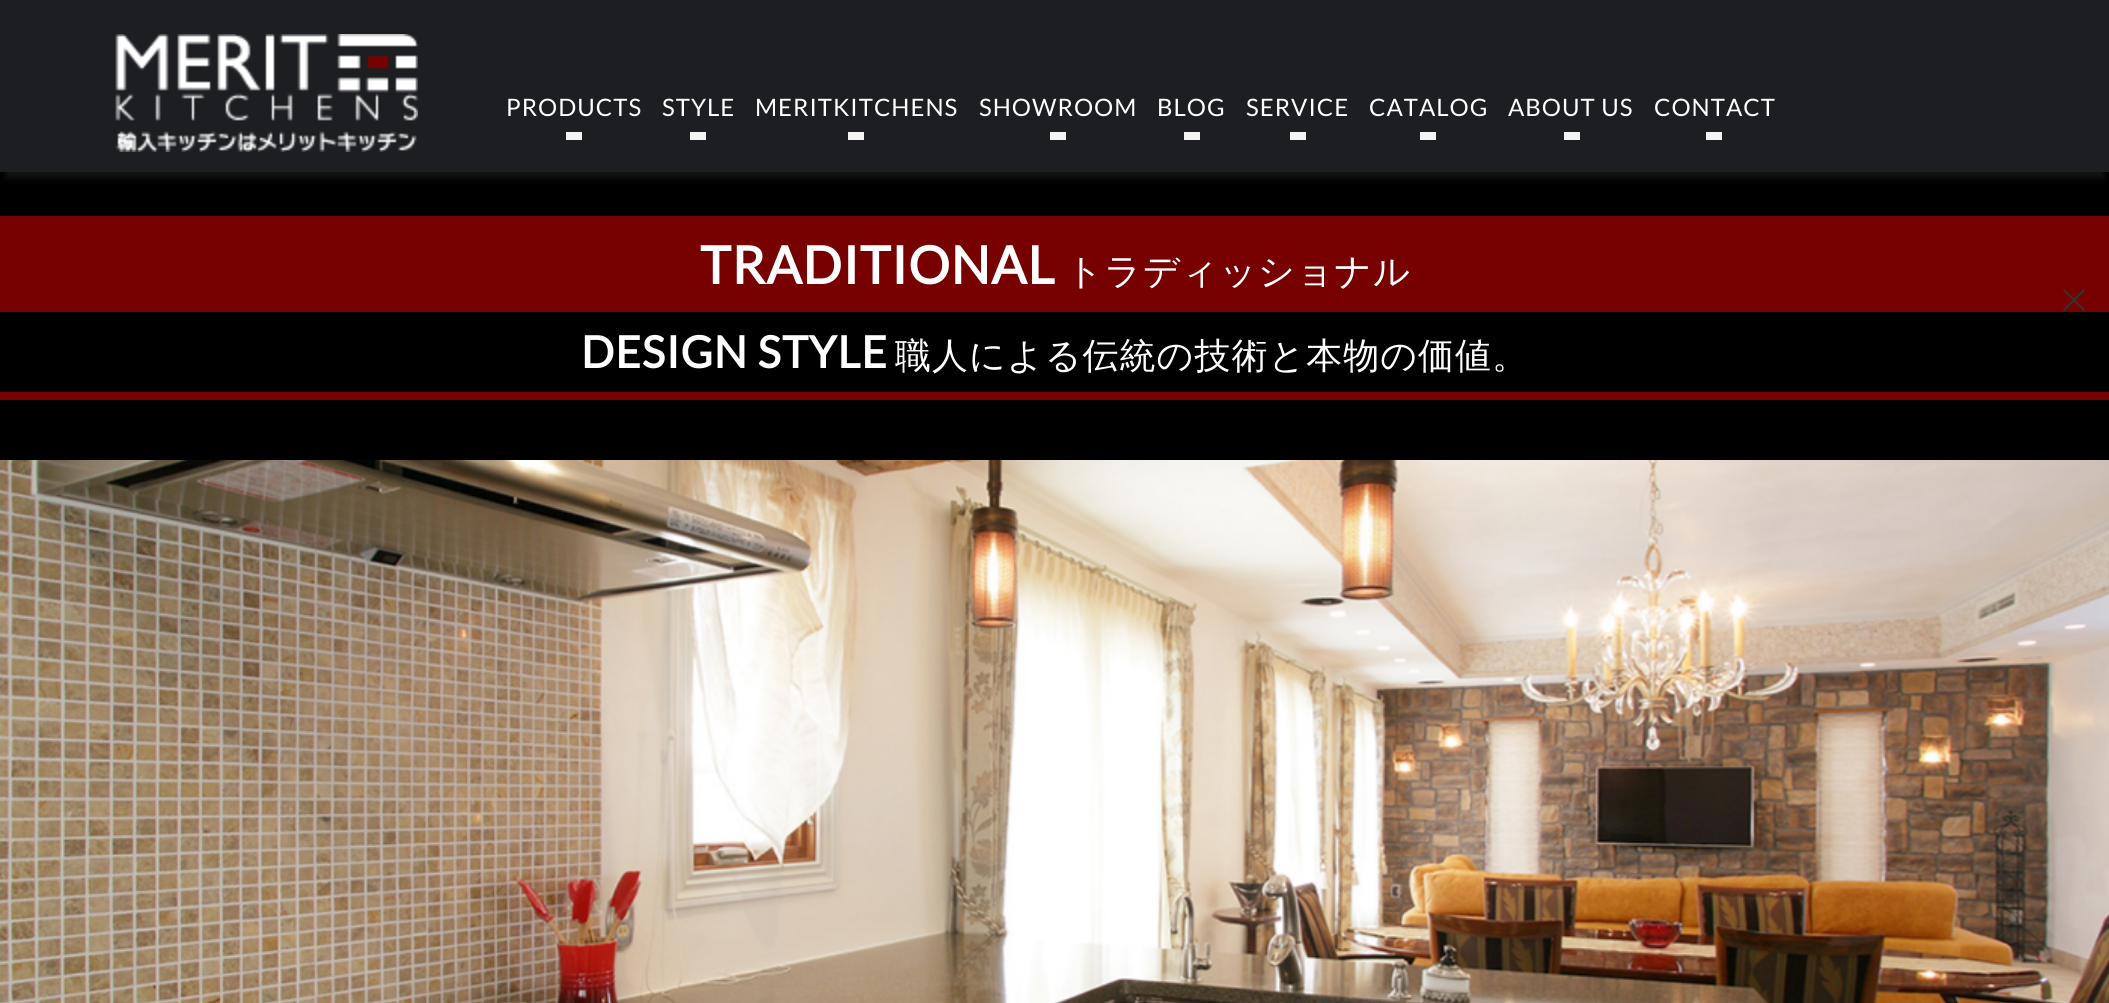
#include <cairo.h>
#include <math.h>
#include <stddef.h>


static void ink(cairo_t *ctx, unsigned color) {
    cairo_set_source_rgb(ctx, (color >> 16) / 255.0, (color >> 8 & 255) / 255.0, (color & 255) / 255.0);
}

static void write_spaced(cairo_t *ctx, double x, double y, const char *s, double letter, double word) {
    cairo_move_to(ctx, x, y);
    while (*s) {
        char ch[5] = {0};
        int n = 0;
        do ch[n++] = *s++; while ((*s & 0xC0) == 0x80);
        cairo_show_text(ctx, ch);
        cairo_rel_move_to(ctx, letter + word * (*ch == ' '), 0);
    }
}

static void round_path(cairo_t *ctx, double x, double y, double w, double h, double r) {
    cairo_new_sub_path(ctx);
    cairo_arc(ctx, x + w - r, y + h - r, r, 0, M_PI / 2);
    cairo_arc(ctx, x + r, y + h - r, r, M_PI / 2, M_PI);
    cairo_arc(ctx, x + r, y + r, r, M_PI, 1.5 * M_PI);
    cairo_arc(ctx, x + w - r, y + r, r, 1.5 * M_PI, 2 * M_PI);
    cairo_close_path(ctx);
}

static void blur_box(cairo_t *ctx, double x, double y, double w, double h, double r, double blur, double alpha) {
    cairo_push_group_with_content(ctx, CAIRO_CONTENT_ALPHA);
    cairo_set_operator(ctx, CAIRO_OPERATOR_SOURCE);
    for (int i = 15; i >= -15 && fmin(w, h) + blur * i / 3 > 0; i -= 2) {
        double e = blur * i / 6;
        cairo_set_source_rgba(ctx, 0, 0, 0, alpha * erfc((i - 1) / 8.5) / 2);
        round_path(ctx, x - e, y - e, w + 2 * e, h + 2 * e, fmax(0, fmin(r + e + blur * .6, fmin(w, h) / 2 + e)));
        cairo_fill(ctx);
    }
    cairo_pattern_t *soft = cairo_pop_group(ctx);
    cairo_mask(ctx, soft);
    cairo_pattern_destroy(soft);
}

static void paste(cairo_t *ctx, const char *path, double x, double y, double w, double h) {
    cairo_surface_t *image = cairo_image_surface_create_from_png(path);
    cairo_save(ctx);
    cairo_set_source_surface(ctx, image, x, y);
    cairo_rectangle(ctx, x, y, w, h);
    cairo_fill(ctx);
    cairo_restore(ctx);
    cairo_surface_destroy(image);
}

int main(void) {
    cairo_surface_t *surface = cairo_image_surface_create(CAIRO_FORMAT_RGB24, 2109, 1003);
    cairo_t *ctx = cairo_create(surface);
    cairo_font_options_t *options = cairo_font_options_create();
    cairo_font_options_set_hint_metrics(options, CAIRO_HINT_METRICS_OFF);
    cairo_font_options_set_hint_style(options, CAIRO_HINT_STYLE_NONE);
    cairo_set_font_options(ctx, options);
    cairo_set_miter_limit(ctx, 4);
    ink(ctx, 0x000000);
    cairo_paint(ctx);
    ink(ctx, 0x202020);
    blur_box(ctx, 6, 18, 2098, 160, 0, 3, 0.6);
    ink(ctx, 0x1C1E21);
    cairo_rectangle(ctx, 0, 0, 2109, 172);
    cairo_fill(ctx);
    paste(ctx, "media/1.png", 115, 34, 303, 118);
    cairo_select_font_face(ctx, "Lato", CAIRO_FONT_SLANT_NORMAL, CAIRO_FONT_WEIGHT_NORMAL);
    cairo_set_font_size(ctx, 24);
    ink(ctx, 0xFFFFFF);
    write_spaced(ctx, 506, 116, "PRODUCTS", 1, 0);
    ink(ctx, 0xF3F3F3);
    cairo_rectangle(ctx, 566, 132, 16, 8);
    cairo_fill(ctx);
    ink(ctx, 0xFFFFFF);
    write_spaced(ctx, 662, 116, "STYLE", 1, 0);
    ink(ctx, 0xF3F3F3);
    cairo_rectangle(ctx, 690, 132, 16, 8);
    cairo_fill(ctx);
    ink(ctx, 0xFFFFFF);
    write_spaced(ctx, 755, 116, "MERITKITCHENS", 1, 0);
    ink(ctx, 0xF3F3F3);
    cairo_rectangle(ctx, 848, 132, 16, 8);
    cairo_fill(ctx);
    ink(ctx, 0xFFFFFF);
    write_spaced(ctx, 979, 116, "SHOWROOM", 1, 0);
    ink(ctx, 0xF3F3F3);
    cairo_rectangle(ctx, 1050, 132, 16, 8);
    cairo_fill(ctx);
    ink(ctx, 0xFFFFFF);
    write_spaced(ctx, 1157, 116, "BLOG", 1, 0);
    ink(ctx, 0xF3F3F3);
    cairo_rectangle(ctx, 1184, 132, 16, 8);
    cairo_fill(ctx);
    ink(ctx, 0xFFFFFF);
    write_spaced(ctx, 1246, 116, "SERVICE", 1, 0);
    ink(ctx, 0xF3F3F3);
    cairo_rectangle(ctx, 1290, 132, 16, 8);
    cairo_fill(ctx);
    ink(ctx, 0xFFFFFF);
    write_spaced(ctx, 1369, 116, "CATALOG", 1, 0);
    ink(ctx, 0xF3F3F3);
    cairo_rectangle(ctx, 1420, 132, 16, 8);
    cairo_fill(ctx);
    ink(ctx, 0xFFFFFF);
    write_spaced(ctx, 1508, 116, "ABOUT US", 1, 0);
    ink(ctx, 0xF3F3F3);
    cairo_rectangle(ctx, 1564, 132, 16, 8);
    cairo_fill(ctx);
    ink(ctx, 0xFFFFFF);
    write_spaced(ctx, 1654, 116, "CONTACT", 1, 0);
    ink(ctx, 0xF3F3F3);
    cairo_rectangle(ctx, 1706, 132, 16, 8);
    cairo_fill(ctx);
    ink(ctx, 0x770001);
    cairo_rectangle(ctx, 0, 216, 2109, 96);
    cairo_fill(ctx);
    cairo_select_font_face(ctx, "Lato", CAIRO_FONT_SLANT_NORMAL, CAIRO_FONT_WEIGHT_BOLD);
    cairo_set_font_size(ctx, 52);
    ink(ctx, 0xFFFFFF);
    write_spaced(ctx, 700, 284, "TRADITIONAL", 1, 0);
    cairo_select_font_face(ctx, "WenQuanYi Zen Hei Medium", CAIRO_FONT_SLANT_NORMAL, CAIRO_FONT_WEIGHT_NORMAL);
    cairo_set_font_size(ctx, 36.5);
    write_spaced(ctx, 1066, 284, "トラディッショナル", 1, 0);
    ink(ctx, 0x770001);
    cairo_rectangle(ctx, 0, 392, 2109, 8);
    cairo_fill(ctx);
    cairo_select_font_face(ctx, "Lato", CAIRO_FONT_SLANT_NORMAL, CAIRO_FONT_WEIGHT_BOLD);
    cairo_set_font_size(ctx, 44);
    ink(ctx, 0xFFFFFF);
    write_spaced(ctx, 581, 368, "DESIGN STYLE", 1, 0);
    cairo_select_font_face(ctx, "WenQuanYi Zen Hei Medium", CAIRO_FONT_SLANT_NORMAL, CAIRO_FONT_WEIGHT_NORMAL);
    cairo_set_font_size(ctx, 36);
    write_spaced(ctx, 895, 368, "職人による伝統の技術と本物の価値。", 1, 0);
    paste(ctx, "media/2.png", 0, 460, 2109, 543);
    cairo_new_path(ctx);
    cairo_move_to(ctx, 2063.5, 289.5);
    cairo_line_to(ctx, 2084.5, 310.5);
    cairo_move_to(ctx, 2063.5, 310.5);
    cairo_line_to(ctx, 2084.5, 289.5);
    ink(ctx, 0x333333);
    cairo_stroke(ctx);
    cairo_surface_write_to_png(surface, "image.png");
    cairo_font_options_destroy(options);
    cairo_destroy(ctx);
    cairo_surface_destroy(surface);
    return 0;
}
